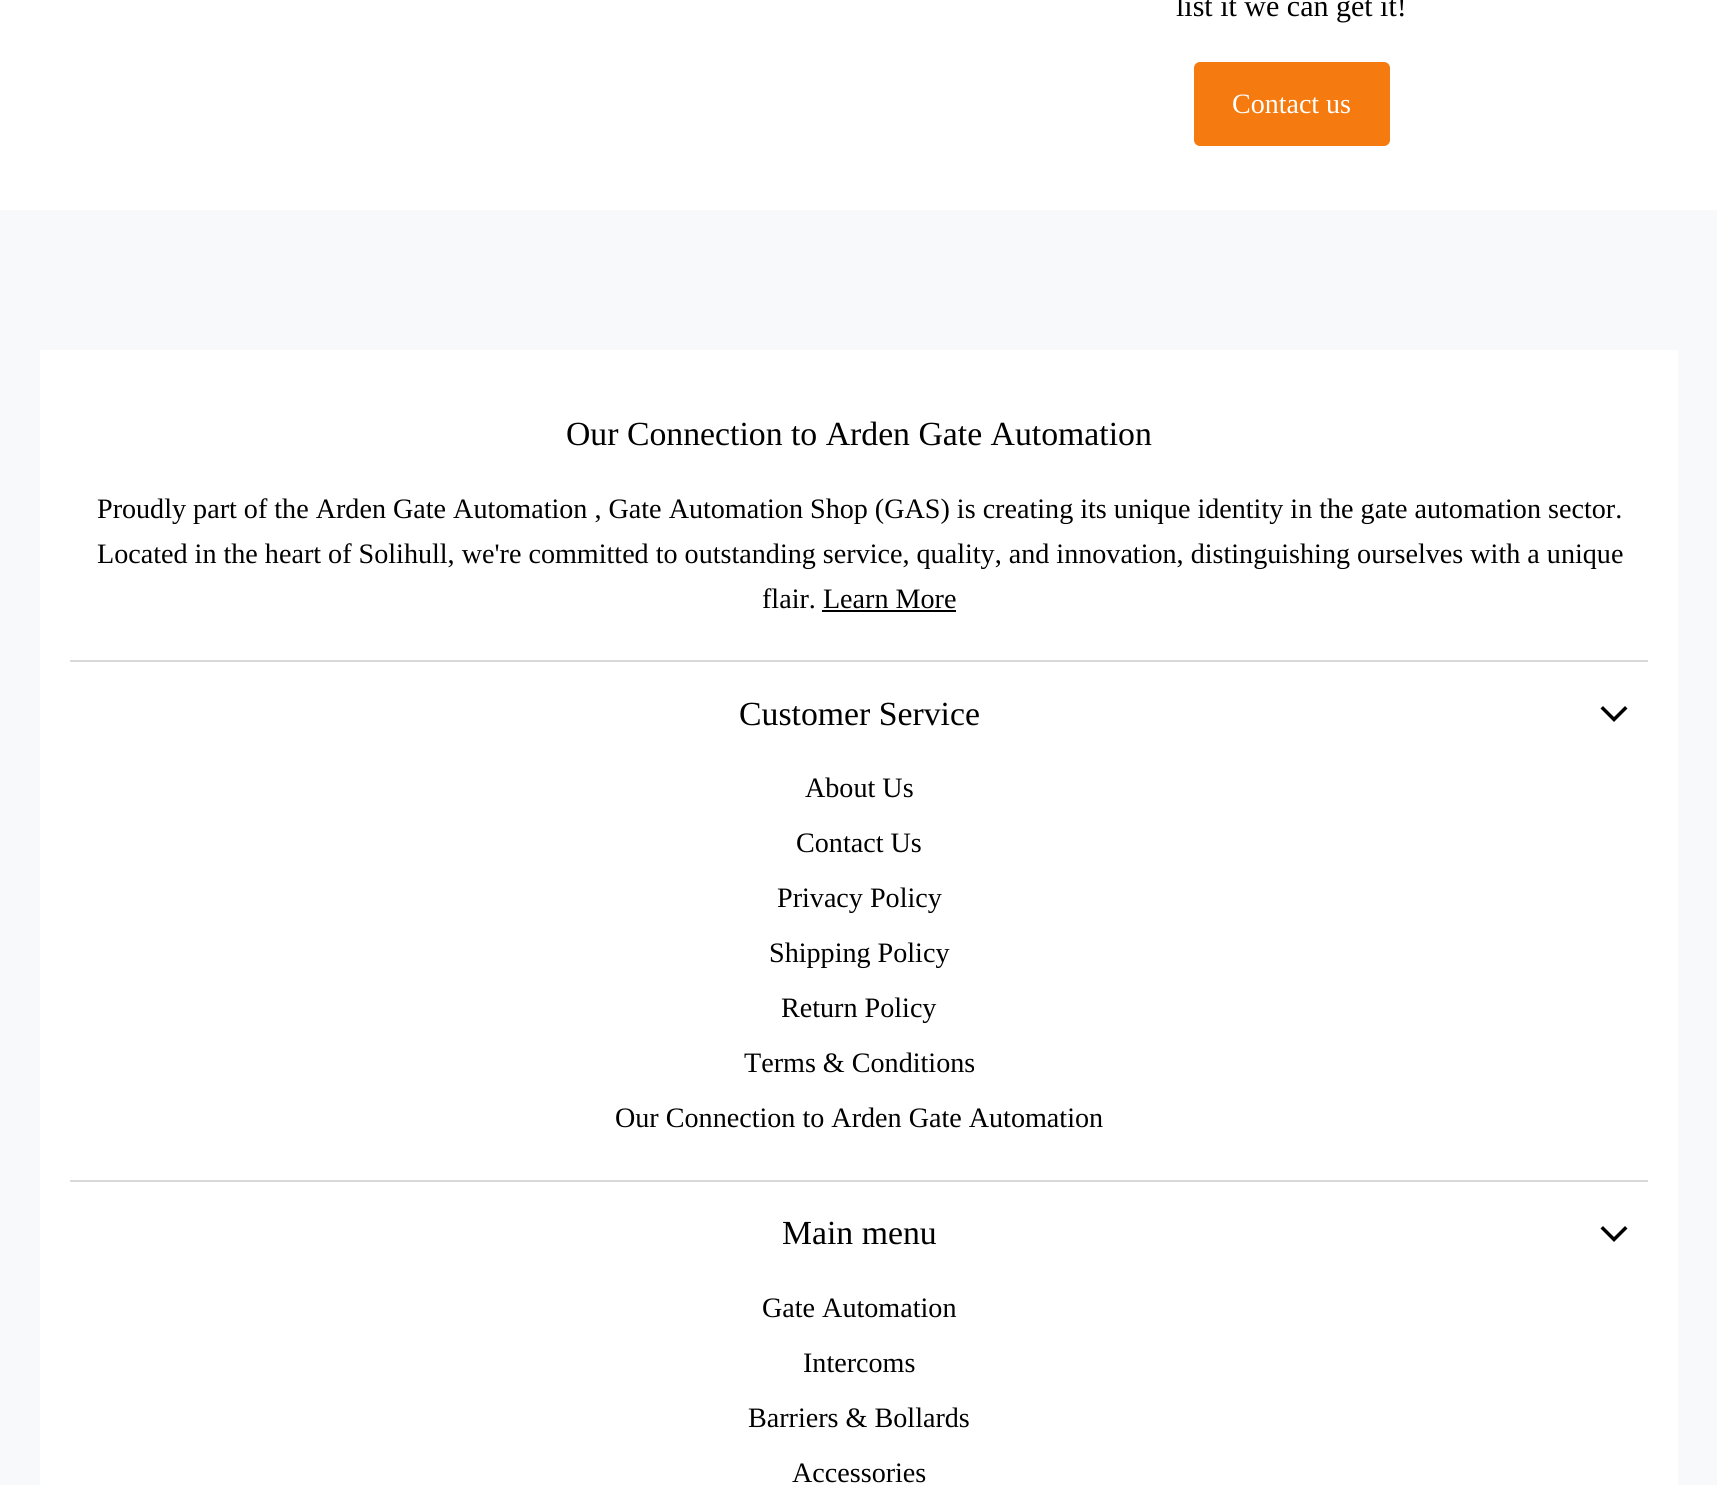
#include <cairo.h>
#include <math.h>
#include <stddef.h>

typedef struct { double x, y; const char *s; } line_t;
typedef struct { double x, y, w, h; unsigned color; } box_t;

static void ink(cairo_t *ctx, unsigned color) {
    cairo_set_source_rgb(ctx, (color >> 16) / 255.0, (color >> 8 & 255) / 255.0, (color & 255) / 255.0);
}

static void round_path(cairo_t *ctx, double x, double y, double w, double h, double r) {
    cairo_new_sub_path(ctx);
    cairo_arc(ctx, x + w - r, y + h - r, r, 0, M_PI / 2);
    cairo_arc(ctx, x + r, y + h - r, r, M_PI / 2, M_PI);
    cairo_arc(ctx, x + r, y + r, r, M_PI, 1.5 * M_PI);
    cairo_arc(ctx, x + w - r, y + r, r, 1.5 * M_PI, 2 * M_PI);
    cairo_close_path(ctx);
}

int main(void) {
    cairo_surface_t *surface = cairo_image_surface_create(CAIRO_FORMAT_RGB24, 1717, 1485);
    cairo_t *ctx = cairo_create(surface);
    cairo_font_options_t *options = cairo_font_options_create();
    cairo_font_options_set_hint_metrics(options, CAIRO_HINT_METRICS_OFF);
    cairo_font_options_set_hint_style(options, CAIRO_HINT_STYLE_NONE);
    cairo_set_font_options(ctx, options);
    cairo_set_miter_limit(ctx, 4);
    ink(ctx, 0xFFFFFF);
    cairo_paint(ctx);
    cairo_select_font_face(ctx, "Liberation Serif", CAIRO_FONT_SLANT_NORMAL, CAIRO_FONT_WEIGHT_NORMAL);
    cairo_set_font_size(ctx, 30);
    ink(ctx, 0x000000);
    cairo_move_to(ctx, 1176, 16);
    cairo_show_text(ctx, "list it we can get it!");
    ink(ctx, 0xF57A10);
    round_path(ctx, 1195, 63, 194, 82, 5);
    cairo_fill_preserve(ctx);
    cairo_stroke(ctx);
    cairo_set_font_size(ctx, 28);
    ink(ctx, 0xFFFFFF);
    cairo_move_to(ctx, 1232, 113);
    cairo_show_text(ctx, "Contact us");
    {
        static const box_t items[] = {
            {0, 210, 1717, 1275, 0xF8F9FA},
            {40, 350, 1638, 1135, 0xFFFFFF},
            {70, 660, 1578, 2, 0xD9D9D9},
        };
        for (size_t i = 0; i < sizeof items / sizeof *items; i++) {
            ink(ctx, items[i].color);
            cairo_rectangle(ctx, items[i].x, items[i].y, items[i].w, items[i].h);
            cairo_fill(ctx);
        }
    }
    cairo_set_font_size(ctx, 33.75);
    ink(ctx, 0x000000);
    cairo_move_to(ctx, 566, 445);
    cairo_show_text(ctx, "Our Connection to Arden Gate Automation");
    cairo_set_font_size(ctx, 28.12);
    {
        static const line_t items[] = {
            {97, 518, "Proudly part of the Arden Gate Automation , Gate Automation Shop (GAS) is creating its unique identity in the gate automation sector."},
            {97, 563, "Located in the heart of Solihull, we're committed to outstanding service, quality, and innovation, distinguishing ourselves with a unique"},
            {762, 608, "flair. Learn More"},
        };
        for (size_t i = 0; i < sizeof items / sizeof *items; i++) {
            cairo_move_to(ctx, items[i].x, items[i].y);
            cairo_show_text(ctx, items[i].s);
        }
    }
    cairo_rectangle(ctx, 822, 610, 134, 2);
    cairo_fill(ctx);
    ink(ctx, 0xD9D9D9);
    cairo_rectangle(ctx, 70, 1180, 1578, 2);
    cairo_fill(ctx);
    cairo_set_font_size(ctx, 33.75);
    ink(ctx, 0x000000);
    cairo_move_to(ctx, 739, 725);
    cairo_show_text(ctx, "Customer Service");
    cairo_new_path(ctx);
    cairo_move_to(ctx, 1614, 719.5);
    cairo_line_to(ctx, 1625, 708.5);
    cairo_move_to(ctx, 1614, 719.5);
    cairo_line_to(ctx, 1603, 708.5);
    cairo_set_line_width(ctx, 3.5);
    cairo_set_line_cap(ctx, CAIRO_LINE_CAP_SQUARE);
    cairo_stroke(ctx);
    cairo_set_font_size(ctx, 28.12);
    {
        static const line_t items[] = {
            {805, 797, "About Us"},
            {796, 852, "Contact Us"},
            {777, 907, "Privacy Policy"},
            {769, 962, "Shipping Policy"},
            {781, 1017, "Return Policy"},
            {744, 1072, "Terms & Conditions"},
            {615, 1127, "Our Connection to Arden Gate Automation"},
        };
        for (size_t i = 0; i < sizeof items / sizeof *items; i++) {
            cairo_move_to(ctx, items[i].x, items[i].y);
            cairo_show_text(ctx, items[i].s);
        }
    }
    cairo_set_font_size(ctx, 33.75);
    cairo_move_to(ctx, 782, 1244);
    cairo_show_text(ctx, "Main menu");
    cairo_new_path(ctx);
    cairo_move_to(ctx, 1614, 1239.5);
    cairo_line_to(ctx, 1625, 1228.5);
    cairo_move_to(ctx, 1614, 1239.5);
    cairo_line_to(ctx, 1603, 1228.5);
    cairo_stroke(ctx);
    cairo_set_font_size(ctx, 28.12);
    {
        static const line_t items[] = {
            {762, 1317, "Gate Automation"},
            {803, 1372, "Intercoms"},
            {748, 1427, "Barriers & Bollards"},
            {792, 1482, "Accessories"},
        };
        for (size_t i = 0; i < sizeof items / sizeof *items; i++) {
            cairo_move_to(ctx, items[i].x, items[i].y);
            cairo_show_text(ctx, items[i].s);
        }
    }
    cairo_surface_write_to_png(surface, "image.png");
    cairo_font_options_destroy(options);
    cairo_destroy(ctx);
    cairo_surface_destroy(surface);
    return 0;
}
